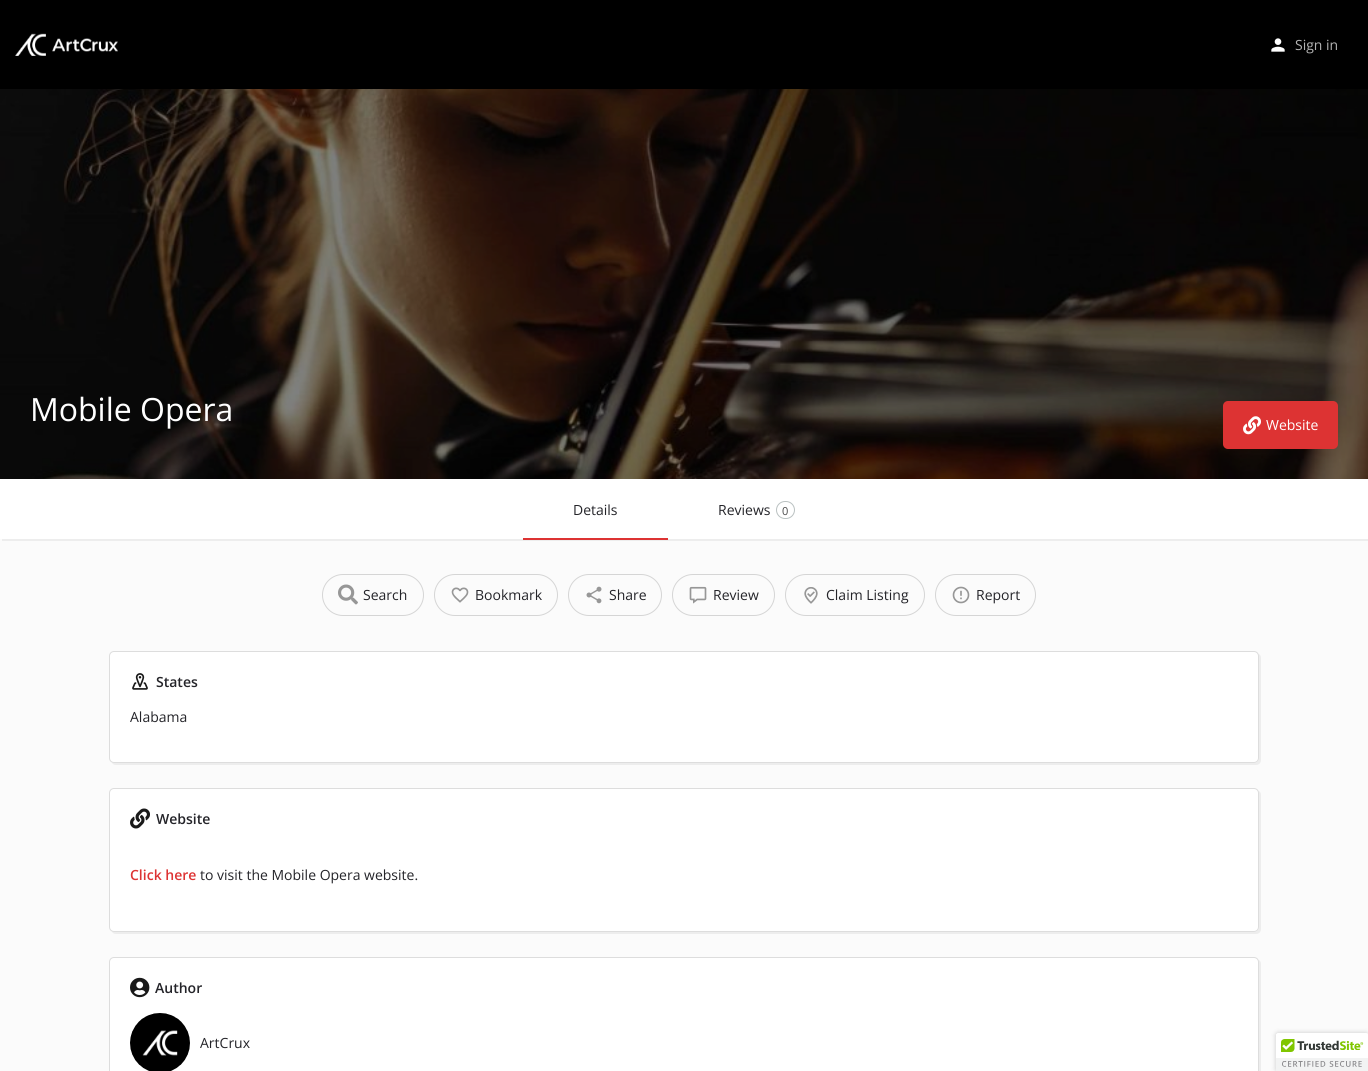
#include <cairo.h>
#include <math.h>
#include <stddef.h>


static void ink(cairo_t *ctx, unsigned color) {
    cairo_set_source_rgb(ctx, (color >> 16) / 255.0, (color >> 8 & 255) / 255.0, (color & 255) / 255.0);
}

static void round_path(cairo_t *ctx, double x, double y, double w, double h, double r) {
    cairo_new_sub_path(ctx);
    cairo_arc(ctx, x + w - r, y + h - r, r, 0, M_PI / 2);
    cairo_arc(ctx, x + r, y + h - r, r, M_PI / 2, M_PI);
    cairo_arc(ctx, x + r, y + r, r, M_PI, 1.5 * M_PI);
    cairo_arc(ctx, x + w - r, y + r, r, 1.5 * M_PI, 2 * M_PI);
    cairo_close_path(ctx);
}

static void blur_box(cairo_t *ctx, double x, double y, double w, double h, double r, double blur, double alpha) {
    cairo_push_group_with_content(ctx, CAIRO_CONTENT_ALPHA);
    cairo_set_operator(ctx, CAIRO_OPERATOR_SOURCE);
    for (int i = 15; i >= -15 && fmin(w, h) + blur * i / 3 > 0; i -= 2) {
        double e = blur * i / 6;
        cairo_set_source_rgba(ctx, 0, 0, 0, alpha * erfc((i - 1) / 8.5) / 2);
        round_path(ctx, x - e, y - e, w + 2 * e, h + 2 * e, fmax(0, fmin(r + e + blur * .6, fmin(w, h) / 2 + e)));
        cairo_fill(ctx);
    }
    cairo_pattern_t *soft = cairo_pop_group(ctx);
    cairo_mask(ctx, soft);
    cairo_pattern_destroy(soft);
}

static void paste(cairo_t *ctx, const char *path, double x, double y, double w, double h) {
    cairo_surface_t *image = cairo_image_surface_create_from_png(path);
    cairo_save(ctx);
    cairo_set_source_surface(ctx, image, x, y);
    cairo_rectangle(ctx, x, y, w, h);
    cairo_fill(ctx);
    cairo_restore(ctx);
    cairo_surface_destroy(image);
}

int main(void) {
    cairo_surface_t *surface = cairo_image_surface_create(CAIRO_FORMAT_RGB24, 1368, 1071);
    cairo_t *ctx = cairo_create(surface);
    cairo_font_options_t *options = cairo_font_options_create();
    cairo_font_options_set_hint_metrics(options, CAIRO_HINT_METRICS_OFF);
    cairo_font_options_set_hint_style(options, CAIRO_HINT_STYLE_NONE);
    cairo_set_font_options(ctx, options);
    cairo_set_miter_limit(ctx, 4);
    ink(ctx, 0xFBFBFB);
    cairo_paint(ctx);
    ink(ctx, 0x000000);
    cairo_rectangle(ctx, 0, 0, 1368, 89);
    cairo_fill(ctx);
    paste(ctx, "media/1.png", 15, 33, 103, 23);
    paste(ctx, "media/2.png", 1271, 38, 14, 14);
    cairo_select_font_face(ctx, "Open Sans", CAIRO_FONT_SLANT_NORMAL, CAIRO_FONT_WEIGHT_NORMAL);
    cairo_set_font_size(ctx, 14);
    ink(ctx, 0xB3B3B3);
    cairo_move_to(ctx, 1295, 50);
    cairo_show_text(ctx, "Sign in");
    paste(ctx, "media/3.png", 0, 89, 1368, 390);
    cairo_set_font_size(ctx, 32);
    ink(ctx, 0xFFFFFF);
    cairo_move_to(ctx, 30, 421);
    cairo_show_text(ctx, "Mobile Opera");
    ink(ctx, 0xDD3333);
    round_path(ctx, 1223, 401, 115, 48, 5);
    cairo_fill(ctx);
    paste(ctx, "media/4.png", 1243, 416, 18, 19);
    cairo_set_font_size(ctx, 14);
    ink(ctx, 0xFFFFFF);
    cairo_move_to(ctx, 1266, 430);
    cairo_show_text(ctx, "Website");
    ink(ctx, 0xEDEDED);
    cairo_new_path(ctx);
    cairo_move_to(ctx, 2, 539);
    cairo_line_to(ctx, 2, 541);
    cairo_line_to(ctx, 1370, 541);
    cairo_line_to(ctx, 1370, 481);
    cairo_line_to(ctx, 1368, 481);
    cairo_line_to(ctx, 1368, 539);
    cairo_close_path(ctx);
    cairo_fill(ctx);
    ink(ctx, 0xFFFFFF);
    cairo_rectangle(ctx, 0, 479, 1368, 60);
    cairo_fill(ctx);
    ink(ctx, 0x242429);
    cairo_move_to(ctx, 573, 515);
    cairo_show_text(ctx, "Details");
    ink(ctx, 0xDD3333);
    cairo_rectangle(ctx, 523, 538, 145, 2);
    cairo_fill(ctx);
    ink(ctx, 0x242429);
    cairo_move_to(ctx, 718, 515);
    cairo_show_text(ctx, "Reviews");
    round_path(ctx, 776.5, 501.5, 18, 17, 8.5);
    ink(ctx, 0xBAC1C1);
    cairo_set_line_width(ctx, 1);
    cairo_stroke(ctx);
    cairo_set_font_size(ctx, 11);
    ink(ctx, 0x484848);
    cairo_move_to(ctx, 782, 515);
    cairo_show_text(ctx, "0");
    round_path(ctx, 322.5, 574.5, 101, 41, 20.5);
    ink(ctx, 0xD5D5D5);
    cairo_stroke(ctx);
    paste(ctx, "media/5.png", 338, 584, 20, 21);
    cairo_set_font_size(ctx, 14);
    ink(ctx, 0x242429);
    cairo_move_to(ctx, 363, 600);
    cairo_show_text(ctx, "Search");
    round_path(ctx, 434.5, 574.5, 123, 41, 20.5);
    ink(ctx, 0xD5D5D5);
    cairo_stroke(ctx);
    paste(ctx, "media/6.png", 451, 587, 18, 16);
    ink(ctx, 0x242429);
    cairo_move_to(ctx, 475, 600);
    cairo_show_text(ctx, "Bookmark");
    round_path(ctx, 568.5, 574.5, 93, 41, 20.5);
    ink(ctx, 0xD5D5D5);
    cairo_stroke(ctx);
    paste(ctx, "media/7.png", 586, 586, 16, 18);
    ink(ctx, 0x242429);
    cairo_move_to(ctx, 609, 600);
    cairo_show_text(ctx, "Share");
    round_path(ctx, 672.5, 574.5, 102, 41, 20.5);
    ink(ctx, 0xD5D5D5);
    cairo_stroke(ctx);
    paste(ctx, "media/8.png", 689, 586, 18, 18);
    ink(ctx, 0x242429);
    cairo_move_to(ctx, 713, 600);
    cairo_show_text(ctx, "Review");
    round_path(ctx, 785.5, 574.5, 139, 41, 20.5);
    ink(ctx, 0xD5D5D5);
    cairo_stroke(ctx);
    paste(ctx, "media/9.png", 804, 587, 14, 17);
    ink(ctx, 0x242429);
    cairo_move_to(ctx, 826, 600);
    cairo_show_text(ctx, "Claim Listing");
    round_path(ctx, 935.5, 574.5, 100, 41, 20.5);
    ink(ctx, 0xD5D5D5);
    cairo_stroke(ctx);
    paste(ctx, "media/10.png", 952, 586, 18, 18);
    ink(ctx, 0x242429);
    cairo_move_to(ctx, 976, 600);
    cairo_show_text(ctx, "Report");
    ink(ctx, 0xEDEDED);
    cairo_new_path(ctx);
    cairo_move_to(ctx, 112, 762);
    cairo_curve_to(ctx, 112, 764, 114, 765, 116, 765);
    cairo_line_to(ctx, 1256, 765);
    cairo_curve_to(ctx, 1259, 765, 1261, 763, 1261, 760);
    cairo_line_to(ctx, 1261, 658);
    cairo_curve_to(ctx, 1261, 656, 1260, 654, 1258, 654);
    cairo_line_to(ctx, 1259, 656);
    cairo_line_to(ctx, 1259, 758);
    cairo_curve_to(ctx, 1259, 761, 1257, 763, 1254, 763);
    cairo_line_to(ctx, 114, 763);
    cairo_close_path(ctx);
    cairo_fill(ctx);
    ink(ctx, 0xFFFFFF);
    round_path(ctx, 109.5, 651.5, 1149, 111, 4.5);
    cairo_fill_preserve(ctx);
    ink(ctx, 0xDDDDDD);
    cairo_stroke(ctx);
    paste(ctx, "media/11.png", 132, 673, 16, 17);
    cairo_select_font_face(ctx, "Open Sans SemiBold", CAIRO_FONT_SLANT_NORMAL, CAIRO_FONT_WEIGHT_NORMAL);
    ink(ctx, 0x242429);
    cairo_move_to(ctx, 156, 687);
    cairo_show_text(ctx, "States");
    cairo_select_font_face(ctx, "Open Sans", CAIRO_FONT_SLANT_NORMAL, CAIRO_FONT_WEIGHT_NORMAL);
    cairo_move_to(ctx, 130, 722);
    cairo_show_text(ctx, "Alabama");
    ink(ctx, 0xEDEDED);
    cairo_new_path(ctx);
    cairo_move_to(ctx, 112, 931);
    cairo_curve_to(ctx, 112, 933, 114, 934, 116, 934);
    cairo_line_to(ctx, 1256, 934);
    cairo_curve_to(ctx, 1259, 934, 1261, 932, 1261, 929);
    cairo_line_to(ctx, 1261, 795);
    cairo_curve_to(ctx, 1261, 793, 1260, 791, 1258, 791);
    cairo_line_to(ctx, 1259, 793);
    cairo_line_to(ctx, 1259, 927);
    cairo_curve_to(ctx, 1259, 930, 1257, 932, 1254, 932);
    cairo_line_to(ctx, 114, 932);
    cairo_close_path(ctx);
    cairo_fill(ctx);
    ink(ctx, 0xFFFFFF);
    round_path(ctx, 109.5, 788.5, 1149, 143, 4.5);
    cairo_fill_preserve(ctx);
    ink(ctx, 0xDDDDDD);
    cairo_stroke(ctx);
    paste(ctx, "media/12.png", 130, 808, 20, 21);
    cairo_select_font_face(ctx, "Open Sans SemiBold", CAIRO_FONT_SLANT_NORMAL, CAIRO_FONT_WEIGHT_NORMAL);
    ink(ctx, 0x242429);
    cairo_move_to(ctx, 156, 824);
    cairo_show_text(ctx, "Website");
    ink(ctx, 0xDD3333);
    cairo_move_to(ctx, 130, 880);
    cairo_show_text(ctx, "Click here");
    cairo_select_font_face(ctx, "Open Sans", CAIRO_FONT_SLANT_NORMAL, CAIRO_FONT_WEIGHT_NORMAL);
    ink(ctx, 0x242429);
    cairo_move_to(ctx, 200, 880);
    cairo_show_text(ctx, "to visit the Mobile Opera website.");
    ink(ctx, 0xEDEDED);
    cairo_new_path(ctx);
    cairo_move_to(ctx, 112, 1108);
    cairo_curve_to(ctx, 112, 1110, 114, 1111, 116, 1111);
    cairo_line_to(ctx, 1256, 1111);
    cairo_curve_to(ctx, 1259, 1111, 1261, 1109, 1261, 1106);
    cairo_line_to(ctx, 1261, 964);
    cairo_curve_to(ctx, 1261, 962, 1260, 960, 1258, 960);
    cairo_line_to(ctx, 1259, 962);
    cairo_line_to(ctx, 1259, 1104);
    cairo_curve_to(ctx, 1259, 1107, 1257, 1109, 1254, 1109);
    cairo_line_to(ctx, 114, 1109);
    cairo_close_path(ctx);
    cairo_fill(ctx);
    ink(ctx, 0xFFFFFF);
    round_path(ctx, 109.5, 957.5, 1149, 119, 4.5);
    cairo_fill_preserve(ctx);
    ink(ctx, 0xDDDDDD);
    cairo_stroke(ctx);
    paste(ctx, "media/13.png", 130, 977, 20, 21);
    cairo_select_font_face(ctx, "Open Sans SemiBold", CAIRO_FONT_SLANT_NORMAL, CAIRO_FONT_WEIGHT_NORMAL);
    ink(ctx, 0x242429);
    cairo_move_to(ctx, 155, 993);
    cairo_show_text(ctx, "Author");
    paste(ctx, "media/14.png", 130, 1013, 60, 58);
    cairo_select_font_face(ctx, "Open Sans", CAIRO_FONT_SLANT_NORMAL, CAIRO_FONT_WEIGHT_NORMAL);
    cairo_move_to(ctx, 200, 1048);
    cairo_show_text(ctx, "ArtCrux");
    ink(ctx, 0x000000);
    blur_box(ctx, 1276, 1033, 92, 38, 2, 2.5, 0.2);
    ink(ctx, 0xFFFFFF);
    cairo_new_path(ctx);
    cairo_move_to(ctx, 1278, 1033);
    cairo_line_to(ctx, 1368, 1033);
    cairo_line_to(ctx, 1368, 1071);
    cairo_line_to(ctx, 1276, 1071);
    cairo_line_to(ctx, 1276, 1035);
    cairo_curve_to(ctx, 1276, 1034, 1277, 1033, 1278, 1033);
    cairo_close_path(ctx);
    cairo_fill(ctx);
    paste(ctx, "media/15.png", 1276, 1033, 92, 38);
    cairo_surface_write_to_png(surface, "image.png");
    cairo_font_options_destroy(options);
    cairo_destroy(ctx);
    cairo_surface_destroy(surface);
    return 0;
}
